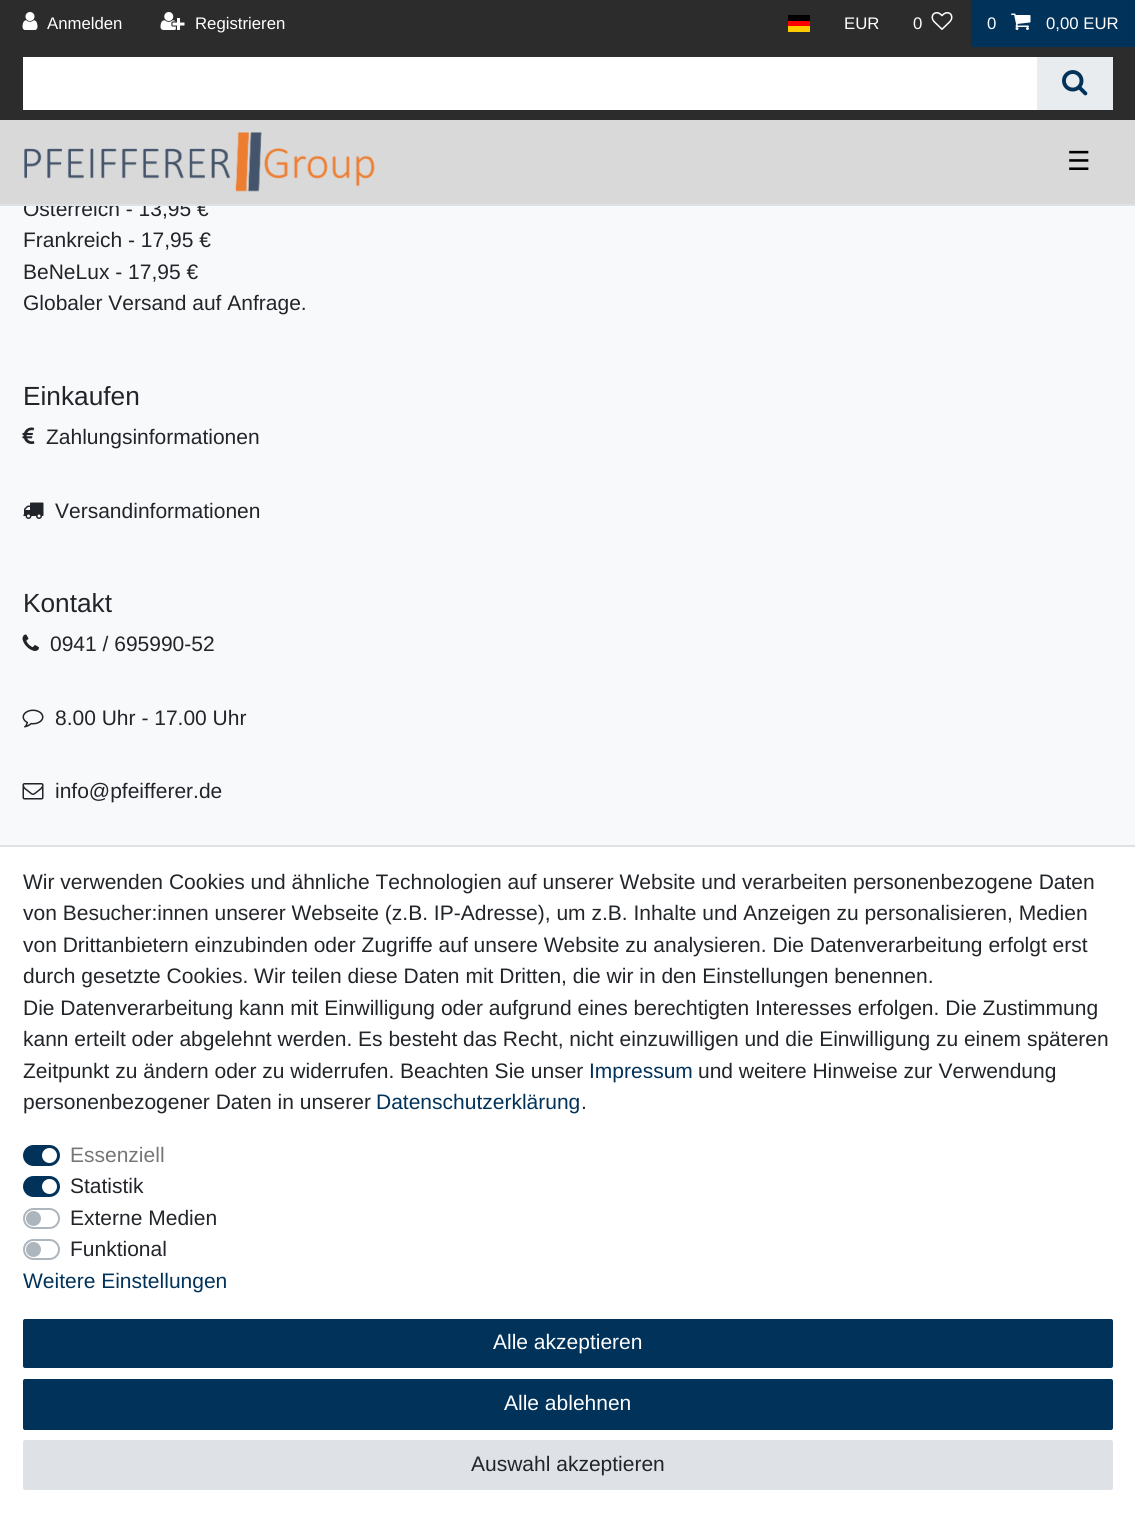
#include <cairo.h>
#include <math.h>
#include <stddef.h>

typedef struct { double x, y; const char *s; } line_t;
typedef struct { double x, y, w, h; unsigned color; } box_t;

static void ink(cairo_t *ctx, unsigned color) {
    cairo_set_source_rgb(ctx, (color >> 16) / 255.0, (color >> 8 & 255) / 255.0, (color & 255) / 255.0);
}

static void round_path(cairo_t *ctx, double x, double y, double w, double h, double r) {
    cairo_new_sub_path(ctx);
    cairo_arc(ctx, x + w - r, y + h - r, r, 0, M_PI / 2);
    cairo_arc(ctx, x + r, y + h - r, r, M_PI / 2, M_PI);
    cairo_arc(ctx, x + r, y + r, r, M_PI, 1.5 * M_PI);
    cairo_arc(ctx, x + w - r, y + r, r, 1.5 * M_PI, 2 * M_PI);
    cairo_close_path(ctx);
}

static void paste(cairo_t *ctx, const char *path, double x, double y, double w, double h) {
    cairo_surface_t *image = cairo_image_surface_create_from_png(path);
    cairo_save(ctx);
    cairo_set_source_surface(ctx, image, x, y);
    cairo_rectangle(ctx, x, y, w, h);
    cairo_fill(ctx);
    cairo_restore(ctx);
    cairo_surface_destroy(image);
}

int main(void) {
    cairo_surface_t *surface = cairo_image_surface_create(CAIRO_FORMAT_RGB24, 1135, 1520);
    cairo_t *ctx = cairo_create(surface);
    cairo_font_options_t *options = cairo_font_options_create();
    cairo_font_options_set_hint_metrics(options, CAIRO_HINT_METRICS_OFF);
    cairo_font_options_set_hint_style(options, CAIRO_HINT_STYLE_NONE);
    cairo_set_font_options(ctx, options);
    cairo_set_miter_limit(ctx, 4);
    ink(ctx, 0xF8F9FA);
    cairo_paint(ctx);
    ink(ctx, 0x2C2C2C);
    cairo_rectangle(ctx, 0, 0, 1135, 120);
    cairo_fill(ctx);
    paste(ctx, "media/1.png", 22, 12, 16, 18);
    cairo_select_font_face(ctx, "Liberation Sans", CAIRO_FONT_SLANT_NORMAL, CAIRO_FONT_WEIGHT_NORMAL);
    cairo_set_font_size(ctx, 16.75);
    ink(ctx, 0xFFFFFF);
    cairo_move_to(ctx, 47, 29);
    cairo_show_text(ctx, "Anmelden");
    paste(ctx, "media/2.png", 160, 12, 25, 18);
    cairo_move_to(ctx, 195, 29);
    cairo_show_text(ctx, "Registrieren");
    {
        static const box_t items[] = {
            {788, 26, 22, 6, 0xFFCC00},
            {788, 15, 22, 6, 0x000000},
            {788, 21, 22, 5, 0xFF0000},
        };
        for (size_t i = 0; i < sizeof items / sizeof *items; i++) {
            ink(ctx, items[i].color);
            cairo_rectangle(ctx, items[i].x, items[i].y, items[i].w, items[i].h);
            cairo_fill(ctx);
        }
    }
    ink(ctx, 0xFFFFFF);
    cairo_move_to(ctx, 844, 29);
    cairo_show_text(ctx, "EUR");
    cairo_move_to(ctx, 913, 29);
    cairo_show_text(ctx, "0");
    paste(ctx, "media/3.png", 931, 12, 22, 18);
    ink(ctx, 0x01325A);
    cairo_rectangle(ctx, 971, 0, 164, 47);
    cairo_fill(ctx);
    ink(ctx, 0xFFFFFF);
    cairo_move_to(ctx, 987, 29);
    cairo_show_text(ctx, "0");
    paste(ctx, "media/4.png", 1011, 13, 20, 17);
    cairo_move_to(ctx, 1046, 29);
    cairo_show_text(ctx, "0,00 EUR");
    cairo_rectangle(ctx, 23, 57, 1014, 53);
    cairo_fill(ctx);
    ink(ctx, 0xE9ECEF);
    cairo_rectangle(ctx, 1037, 57, 76, 53);
    cairo_fill(ctx);
    paste(ctx, "media/5.png", 1062, 70, 26, 26);
    cairo_set_font_size(ctx, 21);
    ink(ctx, 0x212529);
    cairo_move_to(ctx, 23, 216);
    cairo_show_text(ctx, "Österreich - 13,95 €");
    ink(ctx, 0xD9D9D9);
    cairo_rectangle(ctx, 0, 120, 1135, 84);
    cairo_fill(ctx);
    ink(ctx, 0xDEE2E6);
    cairo_rectangle(ctx, 0, 204, 1135, 2);
    cairo_fill(ctx);
    paste(ctx, "media/6.png", 24, 132, 351, 60);
    cairo_select_font_face(ctx, "DejaVu Sans", CAIRO_FONT_SLANT_NORMAL, CAIRO_FONT_WEIGHT_NORMAL);
    cairo_set_font_size(ctx, 26.25);
    ink(ctx, 0x000000);
    cairo_move_to(ctx, 1067, 170);
    cairo_show_text(ctx, "☰");
    cairo_select_font_face(ctx, "Liberation Sans", CAIRO_FONT_SLANT_NORMAL, CAIRO_FONT_WEIGHT_NORMAL);
    cairo_set_font_size(ctx, 21);
    ink(ctx, 0x212529);
    {
        static const line_t items[] = {
            {23, 247, "Frankreich - 17,95 €"},
            {23, 279, "BeNeLux - 17,95 €"},
            {23, 310, "Globaler Versand auf Anfrage."},
        };
        for (size_t i = 0; i < sizeof items / sizeof *items; i++) {
            cairo_move_to(ctx, items[i].x, items[i].y);
            cairo_show_text(ctx, items[i].s);
        }
    }
    cairo_set_font_size(ctx, 26.25);
    cairo_move_to(ctx, 23, 405);
    cairo_show_text(ctx, "Einkaufen");
    paste(ctx, "media/7.png", 22, 427, 13, 17);
    cairo_set_font_size(ctx, 21);
    cairo_move_to(ctx, 46, 444);
    cairo_show_text(ctx, "Zahlungsinformationen");
    paste(ctx, "media/8.png", 23, 502, 21, 17);
    cairo_move_to(ctx, 55, 518);
    cairo_show_text(ctx, "Versandinformationen");
    cairo_set_font_size(ctx, 26.25);
    cairo_move_to(ctx, 23, 612);
    cairo_show_text(ctx, "Kontakt");
    paste(ctx, "media/9.png", 22, 634, 17, 17);
    cairo_set_font_size(ctx, 21);
    cairo_move_to(ctx, 50, 651);
    cairo_show_text(ctx, "0941 / 695990-52");
    paste(ctx, "media/10.png", 22, 709, 22, 19);
    cairo_move_to(ctx, 55, 725);
    cairo_show_text(ctx, "8.00 Uhr - 17.00 Uhr");
    paste(ctx, "media/11.png", 22, 783, 22, 17);
    cairo_move_to(ctx, 55, 798);
    cairo_show_text(ctx, "info@pfeifferer.de");
    ink(ctx, 0xFFFFFF);
    cairo_rectangle(ctx, 0, 847, 1135, 673);
    cairo_fill(ctx);
    ink(ctx, 0xDEE2E6);
    cairo_rectangle(ctx, 0, 845, 1135, 2);
    cairo_fill(ctx);
    ink(ctx, 0x212529);
    {
        static const line_t items[] = {
            {23, 889, "Wir verwenden Cookies und ähnliche Technologien auf unserer Website und verarbeiten personenbezogene Daten"},
            {23, 920, "von Besucher:innen unserer Webseite (z.B. IP-Adresse), um z.B. Inhalte und Anzeigen zu personalisieren, Medien"},
            {23, 952, "von Drittanbietern einzubinden oder Zugriffe auf unsere Website zu analysieren. Die Datenverarbeitung erfolgt erst"},
            {23, 983, "durch gesetzte Cookies. Wir teilen diese Daten mit Dritten, die wir in den Einstellungen benennen."},
            {23, 1015, "Die Datenverarbeitung kann mit Einwilligung oder aufgrund eines berechtigten Interesses erfolgen. Die Zustimmung"},
            {23, 1046, "kann erteilt oder abgelehnt werden. Es besteht das Recht, nicht einzuwilligen und die Einwilligung zu einem späteren"},
            {23, 1078, "Zeitpunkt zu ändern oder zu widerrufen. Beachten Sie unser"},
        };
        for (size_t i = 0; i < sizeof items / sizeof *items; i++) {
            cairo_move_to(ctx, items[i].x, items[i].y);
            cairo_show_text(ctx, items[i].s);
        }
    }
    ink(ctx, 0x01325A);
    cairo_move_to(ctx, 589, 1078);
    cairo_show_text(ctx, "Impressum");
    ink(ctx, 0x212529);
    cairo_move_to(ctx, 698, 1078);
    cairo_show_text(ctx, "und weitere Hinweise zur Verwendung");
    cairo_move_to(ctx, 23, 1109);
    cairo_show_text(ctx, "personenbezogener Daten in unserer");
    ink(ctx, 0x01325A);
    cairo_move_to(ctx, 376, 1109);
    cairo_show_text(ctx, "Datenschutzerklärung");
    ink(ctx, 0x212529);
    cairo_move_to(ctx, 581, 1109);
    cairo_show_text(ctx, ".");
    ink(ctx, 0x01325A);
    round_path(ctx, 24, 1146, 35, 19, 9.5);
    cairo_fill_preserve(ctx);
    cairo_stroke(ctx);
    ink(ctx, 0x767676);
    cairo_move_to(ctx, 70, 1162);
    cairo_show_text(ctx, "Essenziell");
    ink(ctx, 0xFFFFFF);
    cairo_new_path(ctx);
    cairo_arc(ctx, 49.5, 1155.5, 7.5, 0, 2 * M_PI);
    cairo_fill(ctx);
    ink(ctx, 0x01325A);
    round_path(ctx, 24, 1177, 35, 19, 9.5);
    cairo_fill_preserve(ctx);
    cairo_stroke(ctx);
    ink(ctx, 0x212529);
    cairo_move_to(ctx, 70, 1193);
    cairo_show_text(ctx, "Statistik");
    ink(ctx, 0xFFFFFF);
    cairo_new_path(ctx);
    cairo_arc(ctx, 49.5, 1186.5, 7.5, 0, 2 * M_PI);
    cairo_fill(ctx);
    round_path(ctx, 24, 1209, 35, 19, 9.5);
    ink(ctx, 0xADB5BD);
    cairo_stroke(ctx);
    ink(ctx, 0x212529);
    cairo_move_to(ctx, 70, 1225);
    cairo_show_text(ctx, "Externe Medien");
    ink(ctx, 0xADB5BD);
    cairo_new_path(ctx);
    cairo_arc(ctx, 33.5, 1218.5, 7.5, 0, 2 * M_PI);
    cairo_fill(ctx);
    round_path(ctx, 24, 1240, 35, 19, 9.5);
    cairo_stroke(ctx);
    ink(ctx, 0x212529);
    cairo_move_to(ctx, 70, 1256);
    cairo_show_text(ctx, "Funktional");
    ink(ctx, 0xADB5BD);
    cairo_new_path(ctx);
    cairo_arc(ctx, 33.5, 1249.5, 7.5, 0, 2 * M_PI);
    cairo_fill(ctx);
    ink(ctx, 0x01325A);
    cairo_move_to(ctx, 23, 1288);
    cairo_show_text(ctx, "Weitere Einstellungen");
    round_path(ctx, 24, 1320, 1088, 47, 1);
    cairo_fill_preserve(ctx);
    cairo_stroke(ctx);
    ink(ctx, 0xFFFFFF);
    cairo_move_to(ctx, 493, 1349);
    cairo_show_text(ctx, "Alle akzeptieren");
    ink(ctx, 0x01325A);
    round_path(ctx, 24, 1380, 1088, 49, 1);
    cairo_fill_preserve(ctx);
    cairo_stroke(ctx);
    ink(ctx, 0xFFFFFF);
    cairo_move_to(ctx, 504, 1410);
    cairo_show_text(ctx, "Alle ablehnen");
    ink(ctx, 0xDEE2E6);
    round_path(ctx, 24, 1441, 1088, 48, 1);
    cairo_fill_preserve(ctx);
    cairo_stroke(ctx);
    ink(ctx, 0x212529);
    cairo_move_to(ctx, 471, 1471);
    cairo_show_text(ctx, "Auswahl akzeptieren");
    cairo_surface_write_to_png(surface, "image.png");
    cairo_font_options_destroy(options);
    cairo_destroy(ctx);
    cairo_surface_destroy(surface);
    return 0;
}
